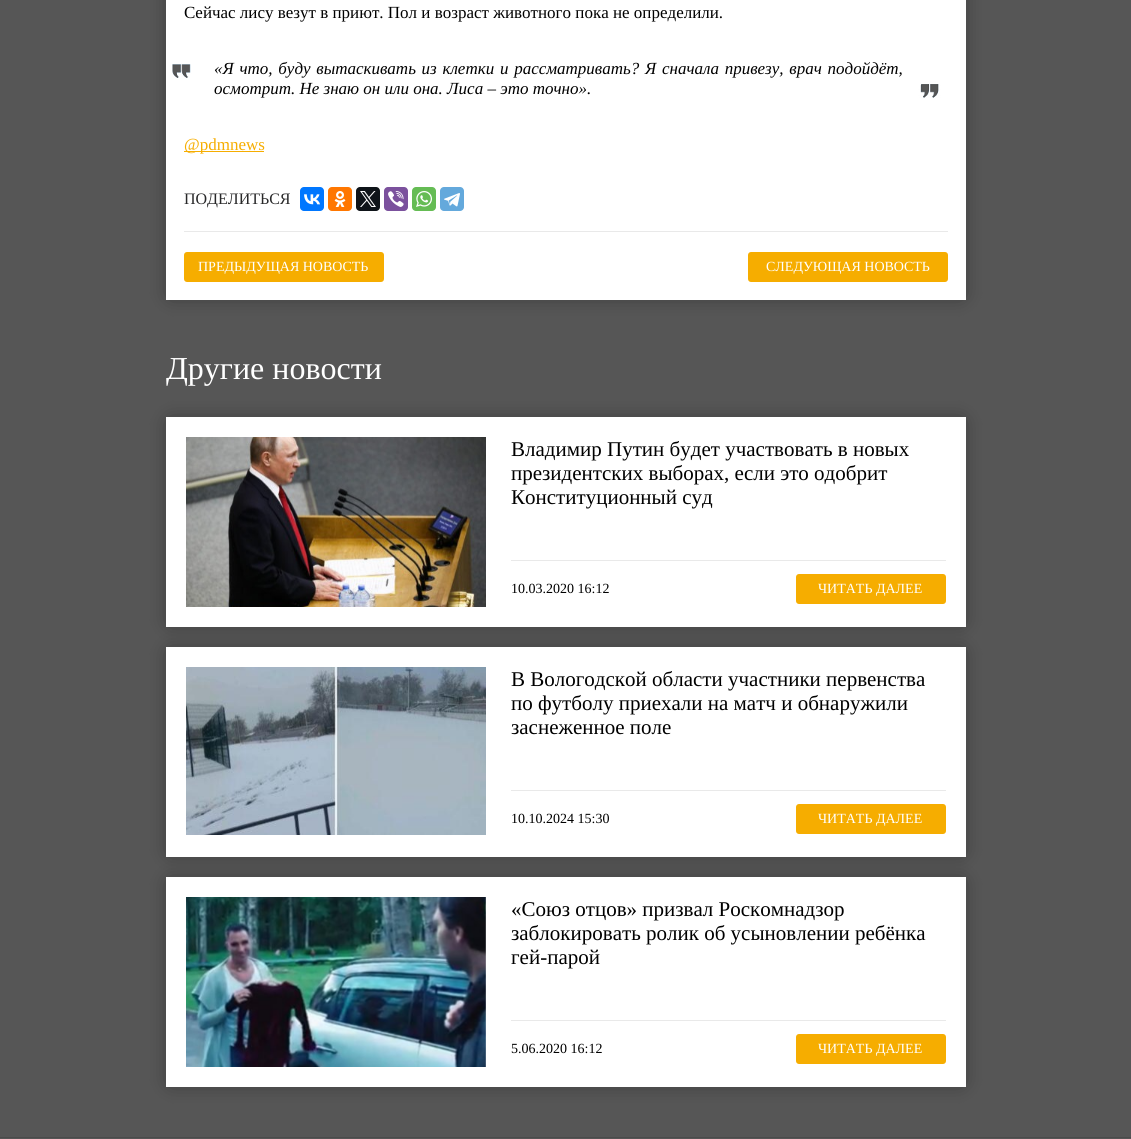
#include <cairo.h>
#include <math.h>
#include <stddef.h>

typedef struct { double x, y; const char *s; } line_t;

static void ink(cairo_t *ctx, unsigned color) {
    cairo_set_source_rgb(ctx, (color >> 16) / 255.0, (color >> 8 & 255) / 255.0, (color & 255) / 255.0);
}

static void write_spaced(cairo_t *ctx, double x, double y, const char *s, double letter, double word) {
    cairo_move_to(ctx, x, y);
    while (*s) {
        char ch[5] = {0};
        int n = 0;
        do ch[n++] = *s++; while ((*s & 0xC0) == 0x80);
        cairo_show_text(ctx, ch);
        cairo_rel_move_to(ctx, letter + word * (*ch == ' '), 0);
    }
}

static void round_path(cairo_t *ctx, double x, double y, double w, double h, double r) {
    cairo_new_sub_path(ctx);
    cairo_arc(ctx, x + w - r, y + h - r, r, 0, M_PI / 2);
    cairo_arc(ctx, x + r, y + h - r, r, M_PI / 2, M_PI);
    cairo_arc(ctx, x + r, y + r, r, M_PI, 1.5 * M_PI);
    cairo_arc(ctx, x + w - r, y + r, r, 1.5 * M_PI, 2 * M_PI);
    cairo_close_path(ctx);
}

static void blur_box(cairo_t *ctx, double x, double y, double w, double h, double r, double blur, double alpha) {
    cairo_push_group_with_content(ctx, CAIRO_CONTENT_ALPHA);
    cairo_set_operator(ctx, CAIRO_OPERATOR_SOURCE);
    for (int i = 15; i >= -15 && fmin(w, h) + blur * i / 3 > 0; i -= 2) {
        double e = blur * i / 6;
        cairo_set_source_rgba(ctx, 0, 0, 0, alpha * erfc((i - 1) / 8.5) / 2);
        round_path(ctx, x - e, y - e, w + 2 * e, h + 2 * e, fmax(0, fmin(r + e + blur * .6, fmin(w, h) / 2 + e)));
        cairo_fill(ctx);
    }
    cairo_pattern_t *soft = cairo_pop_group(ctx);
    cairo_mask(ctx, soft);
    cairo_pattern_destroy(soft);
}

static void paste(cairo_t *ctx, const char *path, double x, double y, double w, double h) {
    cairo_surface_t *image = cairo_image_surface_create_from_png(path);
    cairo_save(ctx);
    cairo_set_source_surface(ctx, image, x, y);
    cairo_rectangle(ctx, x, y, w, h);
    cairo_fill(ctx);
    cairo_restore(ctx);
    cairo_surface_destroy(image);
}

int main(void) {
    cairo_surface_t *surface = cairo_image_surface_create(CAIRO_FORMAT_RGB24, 1131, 1139);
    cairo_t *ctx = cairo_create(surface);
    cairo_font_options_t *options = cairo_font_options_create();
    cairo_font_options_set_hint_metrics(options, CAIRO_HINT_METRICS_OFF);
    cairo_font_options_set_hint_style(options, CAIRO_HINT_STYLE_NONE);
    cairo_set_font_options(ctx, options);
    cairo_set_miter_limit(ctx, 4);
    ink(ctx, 0x565656);
    cairo_paint(ctx);
    ink(ctx, 0x000000);
    blur_box(ctx, 171, -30, 790, 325, 0, 10, 0.49);
    ink(ctx, 0xFFFFFF);
    cairo_rectangle(ctx, 166, 0, 800, 300);
    cairo_fill(ctx);
    cairo_select_font_face(ctx, "Liberation Serif", CAIRO_FONT_SLANT_NORMAL, CAIRO_FONT_WEIGHT_NORMAL);
    cairo_set_font_size(ctx, 17);
    ink(ctx, 0x000000);
    cairo_move_to(ctx, 184, 18);
    cairo_show_text(ctx, "Сейчас лису везут в приют. Пол и возраст животного пока не определили.");
    paste(ctx, "media/1.png", 169, 59, 25, 25);
    cairo_select_font_face(ctx, "Liberation Serif", CAIRO_FONT_SLANT_ITALIC, CAIRO_FONT_WEIGHT_NORMAL);
    write_spaced(ctx, 214, 74, "«Я что, буду вытаскивать из клетки и рассматривать? Я сначала привезу, врач подойдёт,", 0, 1.5);
    cairo_move_to(ctx, 214, 94);
    cairo_show_text(ctx, "осмотрит. Не знаю он или она. Лиса – это точно».");
    paste(ctx, "media/2.png", 918, 80, 25, 25);
    ink(ctx, 0xF6AD00);
    cairo_rectangle(ctx, 184, 151, 80, 1);
    cairo_fill(ctx);
    cairo_select_font_face(ctx, "Liberation Serif", CAIRO_FONT_SLANT_NORMAL, CAIRO_FONT_WEIGHT_NORMAL);
    cairo_move_to(ctx, 184, 150);
    cairo_show_text(ctx, "@pdmnews");
    cairo_set_font_size(ctx, 16);
    ink(ctx, 0x282829);
    cairo_move_to(ctx, 184, 204);
    cairo_show_text(ctx, "ПОДЕЛИТЬСЯ");
    ink(ctx, 0x0077FF);
    round_path(ctx, 300, 187, 24, 24, 4);
    cairo_fill(ctx);
    paste(ctx, "media/3.png", 304, 194, 16, 11);
    ink(ctx, 0xFF7700);
    round_path(ctx, 328, 187, 24, 24, 4);
    cairo_fill(ctx);
    paste(ctx, "media/4.png", 334, 191, 12, 16);
    ink(ctx, 0x0F1419);
    round_path(ctx, 356, 187, 24, 24, 4);
    cairo_fill(ctx);
    paste(ctx, "media/5.png", 360, 191, 16, 16);
    ink(ctx, 0x7B519D);
    round_path(ctx, 384, 187, 24, 24, 4);
    cairo_fill(ctx);
    paste(ctx, "media/6.png", 388, 191, 16, 16);
    ink(ctx, 0x65BC54);
    round_path(ctx, 412, 187, 24, 24, 4);
    cairo_fill(ctx);
    paste(ctx, "media/7.png", 416, 191, 16, 16);
    ink(ctx, 0x64A9DC);
    round_path(ctx, 440, 187, 24, 24, 4);
    cairo_fill(ctx);
    paste(ctx, "media/8.png", 444, 193, 16, 14);
    ink(ctx, 0xE9E9E9);
    cairo_rectangle(ctx, 184, 231, 764, 1);
    cairo_fill(ctx);
    ink(ctx, 0xF6AD00);
    round_path(ctx, 184, 252, 200, 30, 3);
    cairo_fill(ctx);
    cairo_set_font_size(ctx, 14);
    ink(ctx, 0xFFFFFF);
    cairo_move_to(ctx, 198, 271);
    cairo_show_text(ctx, "ПРЕДЫДУЩАЯ НОВОСТЬ");
    ink(ctx, 0xF6AD00);
    round_path(ctx, 748, 252, 200, 30, 3);
    cairo_fill(ctx);
    ink(ctx, 0xFFFFFF);
    cairo_move_to(ctx, 766, 271);
    cairo_show_text(ctx, "СЛЕДУЮЩАЯ НОВОСТЬ");
    cairo_set_font_size(ctx, 32);
    cairo_move_to(ctx, 166, 379);
    cairo_show_text(ctx, "Другие новости");
    ink(ctx, 0x000000);
    blur_box(ctx, 171, 422, 790, 200, 0, 10, 0.49);
    ink(ctx, 0xFFFFFF);
    cairo_rectangle(ctx, 166, 417, 800, 210);
    cairo_fill(ctx);
    paste(ctx, "media/9.png", 186, 437, 300, 170);
    cairo_set_font_size(ctx, 21);
    ink(ctx, 0x000000);
    {
        static const line_t items[] = {
            {511, 456, "Владимир Путин будет участвовать в новых"},
            {511, 480, "президентских выборах, если это одобрит"},
            {511, 504, "Конституционный суд"},
        };
        for (size_t i = 0; i < sizeof items / sizeof *items; i++) {
            cairo_move_to(ctx, items[i].x, items[i].y);
            cairo_show_text(ctx, items[i].s);
        }
    }
    ink(ctx, 0xE9E9E9);
    cairo_rectangle(ctx, 511, 560, 435, 1);
    cairo_fill(ctx);
    cairo_set_font_size(ctx, 14);
    ink(ctx, 0x000000);
    cairo_move_to(ctx, 511, 593);
    cairo_show_text(ctx, "10.03.2020 16:12");
    ink(ctx, 0xF6AD00);
    round_path(ctx, 796, 574, 150, 30, 3);
    cairo_fill(ctx);
    ink(ctx, 0xFFFFFF);
    cairo_move_to(ctx, 818, 593);
    cairo_show_text(ctx, "ЧИТАТЬ ДАЛЕЕ");
    ink(ctx, 0x000000);
    blur_box(ctx, 171, 652, 790, 200, 0, 10, 0.49);
    ink(ctx, 0xFFFFFF);
    cairo_rectangle(ctx, 166, 647, 800, 210);
    cairo_fill(ctx);
    paste(ctx, "media/10.png", 186, 667, 300, 168);
    cairo_set_font_size(ctx, 21);
    ink(ctx, 0x000000);
    {
        static const line_t items[] = {
            {511, 686, "В Вологодской области участники первенства"},
            {511, 710, "по футболу приехали на матч и обнаружили"},
            {511, 734, "заснеженное поле"},
        };
        for (size_t i = 0; i < sizeof items / sizeof *items; i++) {
            cairo_move_to(ctx, items[i].x, items[i].y);
            cairo_show_text(ctx, items[i].s);
        }
    }
    ink(ctx, 0xE9E9E9);
    cairo_rectangle(ctx, 511, 790, 435, 1);
    cairo_fill(ctx);
    cairo_set_font_size(ctx, 14);
    ink(ctx, 0x000000);
    cairo_move_to(ctx, 511, 823);
    cairo_show_text(ctx, "10.10.2024 15:30");
    ink(ctx, 0xF6AD00);
    round_path(ctx, 796, 804, 150, 30, 3);
    cairo_fill(ctx);
    ink(ctx, 0xFFFFFF);
    cairo_move_to(ctx, 818, 823);
    cairo_show_text(ctx, "ЧИТАТЬ ДАЛЕЕ");
    ink(ctx, 0x000000);
    blur_box(ctx, 171, 882, 790, 200, 0, 10, 0.49);
    ink(ctx, 0xFFFFFF);
    cairo_rectangle(ctx, 166, 877, 800, 210);
    cairo_fill(ctx);
    paste(ctx, "media/11.png", 186, 897, 300, 170);
    cairo_set_font_size(ctx, 21);
    ink(ctx, 0x000000);
    {
        static const line_t items[] = {
            {511, 916, "«Союз отцов» призвал Роскомнадзор"},
            {511, 940, "заблокировать ролик об усыновлении ребёнка"},
            {511, 964, "гей-парой"},
        };
        for (size_t i = 0; i < sizeof items / sizeof *items; i++) {
            cairo_move_to(ctx, items[i].x, items[i].y);
            cairo_show_text(ctx, items[i].s);
        }
    }
    ink(ctx, 0xE9E9E9);
    cairo_rectangle(ctx, 511, 1020, 435, 1);
    cairo_fill(ctx);
    cairo_set_font_size(ctx, 14);
    ink(ctx, 0x000000);
    cairo_move_to(ctx, 511, 1053);
    cairo_show_text(ctx, "5.06.2020 16:12");
    ink(ctx, 0xF6AD00);
    round_path(ctx, 796, 1034, 150, 30, 3);
    cairo_fill(ctx);
    ink(ctx, 0xFFFFFF);
    cairo_move_to(ctx, 818, 1053);
    cairo_show_text(ctx, "ЧИТАТЬ ДАЛЕЕ");
    ink(ctx, 0x4B4B4B);
    cairo_rectangle(ctx, 0, 1137, 1131, 1);
    cairo_fill(ctx);
    cairo_surface_write_to_png(surface, "image.png");
    cairo_font_options_destroy(options);
    cairo_destroy(ctx);
    cairo_surface_destroy(surface);
    return 0;
}
